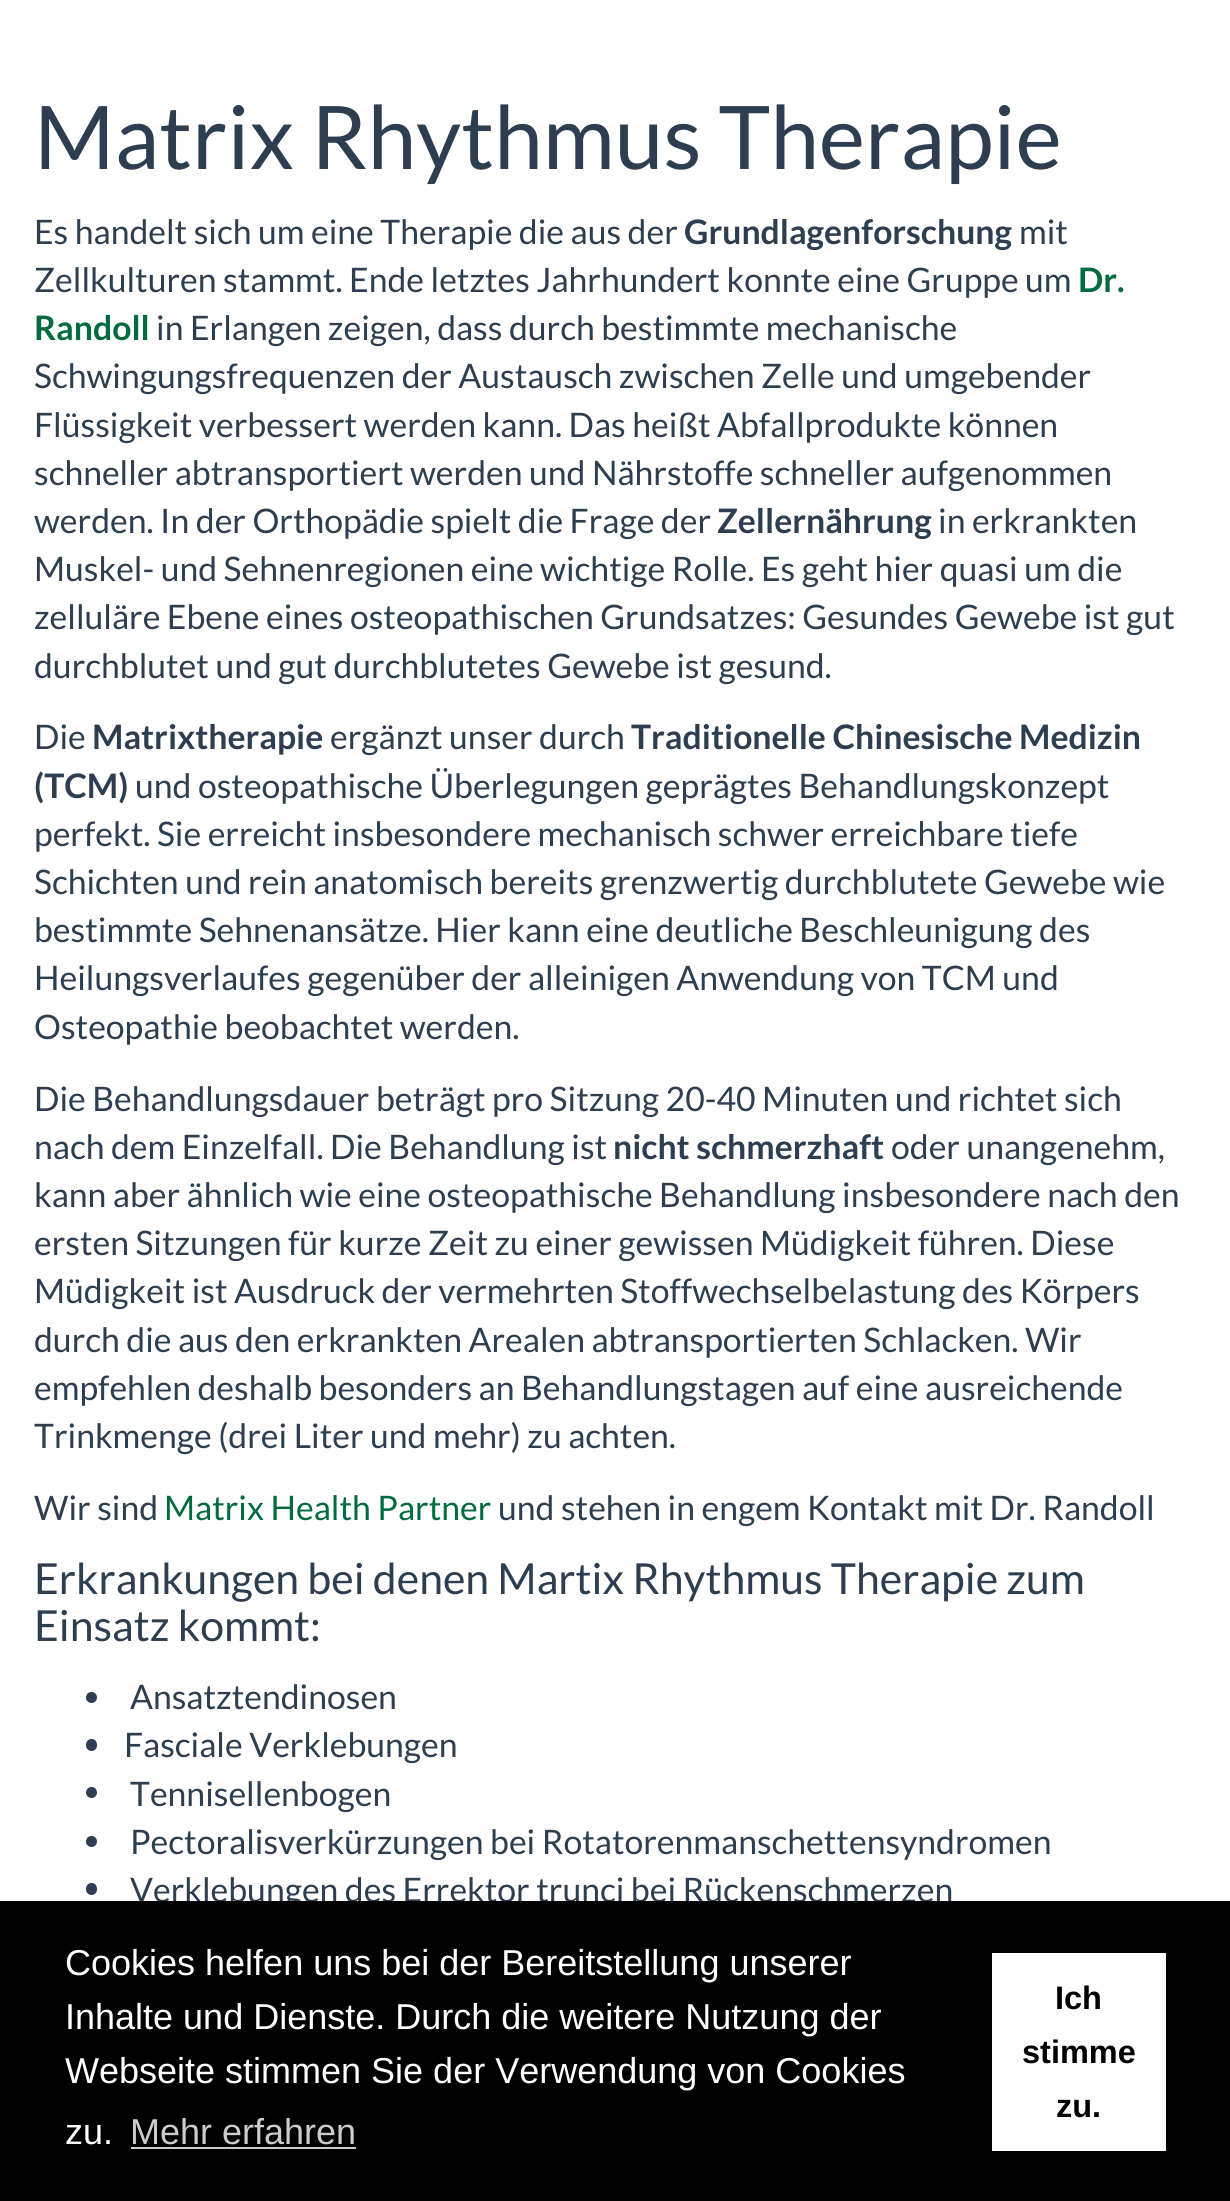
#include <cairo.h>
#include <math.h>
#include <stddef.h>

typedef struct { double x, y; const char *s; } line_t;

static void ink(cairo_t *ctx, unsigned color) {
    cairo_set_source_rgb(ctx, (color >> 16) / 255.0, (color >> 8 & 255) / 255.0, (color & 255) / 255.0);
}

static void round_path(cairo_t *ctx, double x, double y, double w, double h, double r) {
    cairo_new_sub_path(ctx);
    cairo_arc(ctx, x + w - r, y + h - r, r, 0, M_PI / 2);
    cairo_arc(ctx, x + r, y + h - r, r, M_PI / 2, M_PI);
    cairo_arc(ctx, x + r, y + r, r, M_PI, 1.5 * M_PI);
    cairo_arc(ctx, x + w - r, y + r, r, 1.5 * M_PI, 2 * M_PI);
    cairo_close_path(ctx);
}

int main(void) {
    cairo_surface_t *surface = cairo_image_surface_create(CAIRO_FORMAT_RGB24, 1230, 2201);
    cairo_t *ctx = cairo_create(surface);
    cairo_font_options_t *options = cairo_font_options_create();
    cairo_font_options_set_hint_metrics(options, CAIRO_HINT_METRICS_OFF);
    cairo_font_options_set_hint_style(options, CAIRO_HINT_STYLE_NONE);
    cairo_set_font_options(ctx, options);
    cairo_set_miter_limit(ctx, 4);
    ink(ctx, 0xFFFFFF);
    cairo_paint(ctx);
    cairo_select_font_face(ctx, "Lato", CAIRO_FONT_SLANT_NORMAL, CAIRO_FONT_WEIGHT_NORMAL);
    cairo_set_font_size(ctx, 87.75);
    ink(ctx, 0x2C3E50);
    cairo_move_to(ctx, 34, 169);
    cairo_show_text(ctx, "Matrix Rhythmus Therapie");
    cairo_set_font_size(ctx, 33.75);
    cairo_move_to(ctx, 34, 244);
    cairo_show_text(ctx, "Es handelt sich um eine Therapie die aus der");
    cairo_select_font_face(ctx, "Lato", CAIRO_FONT_SLANT_NORMAL, CAIRO_FONT_WEIGHT_BOLD);
    cairo_move_to(ctx, 684, 244);
    cairo_show_text(ctx, "Grundlagenforschung");
    cairo_select_font_face(ctx, "Lato", CAIRO_FONT_SLANT_NORMAL, CAIRO_FONT_WEIGHT_NORMAL);
    cairo_move_to(ctx, 1019, 244);
    cairo_show_text(ctx, "mit");
    cairo_move_to(ctx, 34, 292);
    cairo_show_text(ctx, "Zellkulturen stammt. Ende letztes Jahrhundert konnte eine Gruppe um");
    cairo_select_font_face(ctx, "Lato", CAIRO_FONT_SLANT_NORMAL, CAIRO_FONT_WEIGHT_BOLD);
    ink(ctx, 0x006B3D);
    cairo_move_to(ctx, 1078, 292);
    cairo_show_text(ctx, "Dr.");
    cairo_move_to(ctx, 34, 340);
    cairo_show_text(ctx, "Randoll");
    cairo_select_font_face(ctx, "Lato", CAIRO_FONT_SLANT_NORMAL, CAIRO_FONT_WEIGHT_NORMAL);
    ink(ctx, 0x2C3E50);
    {
        static const line_t items[] = {
            {156, 340, "in Erlangen zeigen, dass durch bestimmte mechanische"},
            {34, 388, "Schwingungsfrequenzen der Austausch zwischen Zelle und umgebender"},
            {34, 437, "Flüssigkeit verbessert werden kann. Das heißt Abfallprodukte können"},
            {34, 485, "schneller abtransportiert werden und Nährstoffe schneller aufgenommen"},
            {34, 533, "werden. In der Orthopädie spielt die Frage der"},
        };
        for (size_t i = 0; i < sizeof items / sizeof *items; i++) {
            cairo_move_to(ctx, items[i].x, items[i].y);
            cairo_show_text(ctx, items[i].s);
        }
    }
    cairo_select_font_face(ctx, "Lato", CAIRO_FONT_SLANT_NORMAL, CAIRO_FONT_WEIGHT_BOLD);
    cairo_move_to(ctx, 717, 533);
    cairo_show_text(ctx, "Zellernährung");
    cairo_select_font_face(ctx, "Lato", CAIRO_FONT_SLANT_NORMAL, CAIRO_FONT_WEIGHT_NORMAL);
    {
        static const line_t items[] = {
            {938, 533, "in erkrankten"},
            {34, 581, "Muskel- und Sehnenregionen eine wichtige Rolle. Es geht hier quasi um die"},
            {34, 629, "zelluläre Ebene eines osteopathischen Grundsatzes: Gesundes Gewebe ist gut"},
            {34, 678, "durchblutet und gut durchblutetes Gewebe ist gesund."},
            {34, 749, "Die"},
        };
        for (size_t i = 0; i < sizeof items / sizeof *items; i++) {
            cairo_move_to(ctx, items[i].x, items[i].y);
            cairo_show_text(ctx, items[i].s);
        }
    }
    cairo_select_font_face(ctx, "Lato", CAIRO_FONT_SLANT_NORMAL, CAIRO_FONT_WEIGHT_BOLD);
    cairo_move_to(ctx, 92, 749);
    cairo_show_text(ctx, "Matrixtherapie");
    cairo_select_font_face(ctx, "Lato", CAIRO_FONT_SLANT_NORMAL, CAIRO_FONT_WEIGHT_NORMAL);
    cairo_move_to(ctx, 330, 749);
    cairo_show_text(ctx, "ergänzt unser durch");
    cairo_select_font_face(ctx, "Lato", CAIRO_FONT_SLANT_NORMAL, CAIRO_FONT_WEIGHT_BOLD);
    cairo_move_to(ctx, 631, 749);
    cairo_show_text(ctx, "Traditionelle Chinesische Medizin");
    cairo_move_to(ctx, 34, 798);
    cairo_show_text(ctx, "(TCM)");
    cairo_select_font_face(ctx, "Lato", CAIRO_FONT_SLANT_NORMAL, CAIRO_FONT_WEIGHT_NORMAL);
    {
        static const line_t items[] = {
            {135, 798, "und osteopathische Überlegungen geprägtes Behandlungskonzept"},
            {34, 846, "perfekt. Sie erreicht insbesondere mechanisch schwer erreichbare tiefe"},
            {34, 894, "Schichten und rein anatomisch bereits grenzwertig durchblutete Gewebe wie"},
            {34, 942, "bestimmte Sehnenansätze. Hier kann eine deutliche Beschleunigung des"},
            {34, 990, "Heilungsverlaufes gegenüber der alleinigen Anwendung von TCM und"},
            {34, 1039, "Osteopathie beobachtet werden."},
            {34, 1111, "Die Behandlungsdauer beträgt pro Sitzung 20-40 Minuten und richtet sich"},
            {34, 1159, "nach dem Einzelfall. Die Behandlung ist"},
        };
        for (size_t i = 0; i < sizeof items / sizeof *items; i++) {
            cairo_move_to(ctx, items[i].x, items[i].y);
            cairo_show_text(ctx, items[i].s);
        }
    }
    cairo_select_font_face(ctx, "Lato", CAIRO_FONT_SLANT_NORMAL, CAIRO_FONT_WEIGHT_BOLD);
    cairo_move_to(ctx, 613, 1159);
    cairo_show_text(ctx, "nicht schmerzhaft");
    cairo_select_font_face(ctx, "Lato", CAIRO_FONT_SLANT_NORMAL, CAIRO_FONT_WEIGHT_NORMAL);
    {
        static const line_t items[] = {
            {891, 1159, "oder unangenehm,"},
            {34, 1207, "kann aber ähnlich wie eine osteopathische Behandlung insbesondere nach den"},
            {34, 1255, "ersten Sitzungen für kurze Zeit zu einer gewissen Müdigkeit führen. Diese"},
            {34, 1303, "Müdigkeit ist Ausdruck der vermehrten Stoffwechselbelastung des Körpers"},
            {34, 1352, "durch die aus den erkrankten Arealen abtransportierten Schlacken. Wir"},
            {34, 1400, "empfehlen deshalb besonders an Behandlungstagen auf eine ausreichende"},
            {34, 1448, "Trinkmenge (drei Liter und mehr) zu achten."},
            {34, 1520, "Wir sind"},
        };
        for (size_t i = 0; i < sizeof items / sizeof *items; i++) {
            cairo_move_to(ctx, items[i].x, items[i].y);
            cairo_show_text(ctx, items[i].s);
        }
    }
    ink(ctx, 0x006B3D);
    cairo_move_to(ctx, 164, 1520);
    cairo_show_text(ctx, "Matrix Health Partner");
    ink(ctx, 0x2C3E50);
    cairo_move_to(ctx, 498, 1520);
    cairo_show_text(ctx, "und stehen in engem Kontakt mit Dr. Randoll");
    cairo_set_font_size(ctx, 42.75);
    cairo_move_to(ctx, 34, 1594);
    cairo_show_text(ctx, "Erkrankungen bei denen Martix Rhythmus Therapie zum");
    cairo_move_to(ctx, 34, 1641);
    cairo_show_text(ctx, "Einsatz kommt:");
    cairo_new_path(ctx);
    cairo_arc(ctx, 91.5, 1697.5, 5.5, 0, 2 * M_PI);
    cairo_fill(ctx);
    cairo_set_font_size(ctx, 33.75);
    cairo_move_to(ctx, 130, 1709);
    cairo_show_text(ctx, "Ansatztendinosen");
    round_path(ctx, 86, 1739, 11, 12, 5.5);
    cairo_fill(ctx);
    cairo_move_to(ctx, 124, 1757);
    cairo_show_text(ctx, "Fasciale Verklebungen");
    cairo_new_path(ctx);
    cairo_arc(ctx, 91.5, 1792.5, 5.5, 0, 2 * M_PI);
    cairo_fill(ctx);
    cairo_move_to(ctx, 130, 1806);
    cairo_show_text(ctx, "Tennisellenbogen");
    cairo_new_path(ctx);
    cairo_arc(ctx, 91.5, 1841.5, 5.5, 0, 2 * M_PI);
    cairo_fill(ctx);
    cairo_move_to(ctx, 130, 1854);
    cairo_show_text(ctx, "Pectoralisverkürzungen bei Rotatorenmanschettensyndromen");
    round_path(ctx, 86, 1883, 11, 12, 5.5);
    cairo_fill(ctx);
    cairo_move_to(ctx, 130, 1902);
    cairo_show_text(ctx, "Verklebungen des Errektor trunci bei Rückenschmerzen");
    ink(ctx, 0x000000);
    cairo_rectangle(ctx, 0, 1901, 1230, 300);
    cairo_fill(ctx);
    cairo_select_font_face(ctx, "Liberation Sans", CAIRO_FONT_SLANT_NORMAL, CAIRO_FONT_WEIGHT_NORMAL);
    cairo_set_font_size(ctx, 36);
    ink(ctx, 0xFFFFFF);
    {
        static const line_t items[] = {
            {65, 1975, "Cookies helfen uns bei der Bereitstellung unserer"},
            {65, 2029, "Inhalte und Dienste. Durch die weitere Nutzung der"},
            {65, 2083, "Webseite stimmen Sie der Verwendung von Cookies"},
            {65, 2144, "zu."},
        };
        for (size_t i = 0; i < sizeof items / sizeof *items; i++) {
            cairo_move_to(ctx, items[i].x, items[i].y);
            cairo_show_text(ctx, items[i].s);
        }
    }
    ink(ctx, 0xCCCCCC);
    cairo_move_to(ctx, 130, 2144);
    cairo_show_text(ctx, "Mehr erfahren");
    cairo_rectangle(ctx, 131, 2147, 225, 2);
    cairo_fill(ctx);
    ink(ctx, 0xFFFFFF);
    cairo_rectangle(ctx, 992, 1953, 174, 198);
    cairo_fill(ctx);
    cairo_select_font_face(ctx, "Liberation Sans", CAIRO_FONT_SLANT_NORMAL, CAIRO_FONT_WEIGHT_BOLD);
    cairo_set_font_size(ctx, 32.5);
    ink(ctx, 0x000000);
    {
        static const line_t items[] = {
            {1055, 2009, "Ich"},
            {1022, 2063, "stimme"},
            {1056, 2117, "zu."},
        };
        for (size_t i = 0; i < sizeof items / sizeof *items; i++) {
            cairo_move_to(ctx, items[i].x, items[i].y);
            cairo_show_text(ctx, items[i].s);
        }
    }
    cairo_surface_write_to_png(surface, "image.png");
    cairo_font_options_destroy(options);
    cairo_destroy(ctx);
    cairo_surface_destroy(surface);
    return 0;
}
